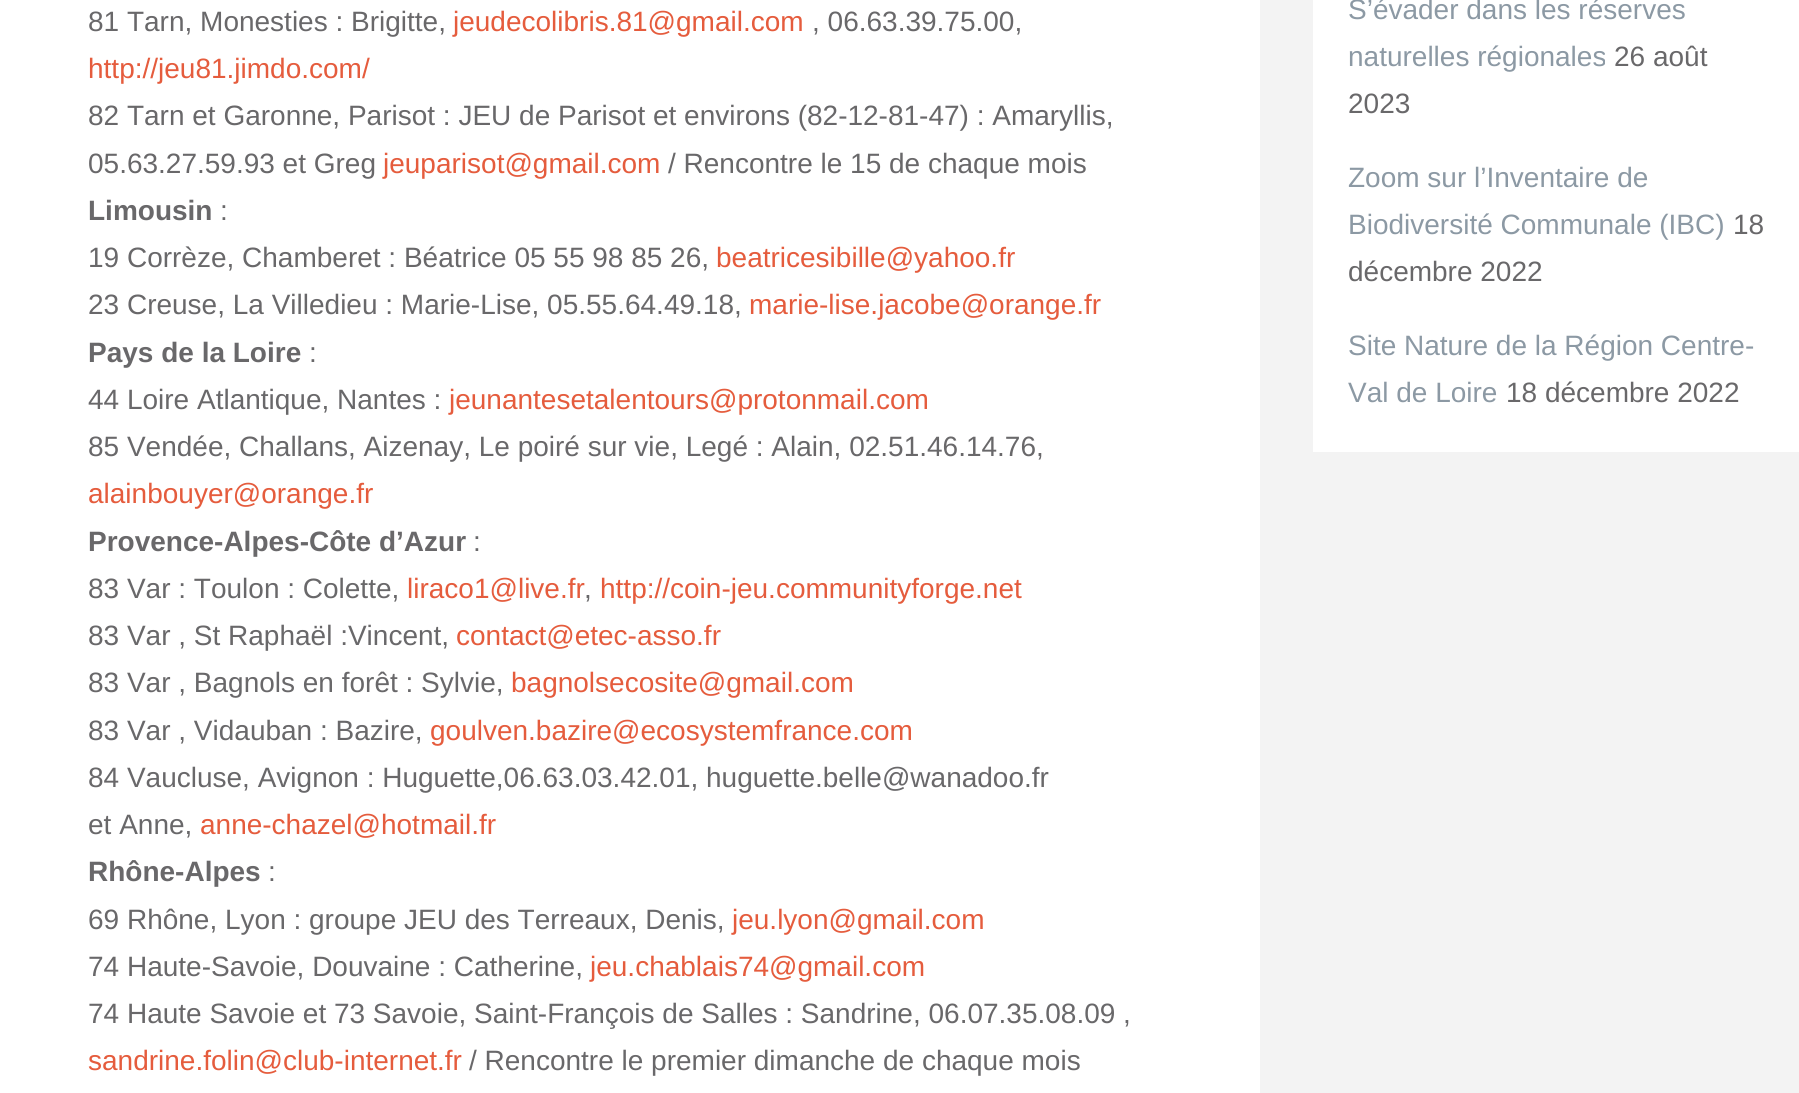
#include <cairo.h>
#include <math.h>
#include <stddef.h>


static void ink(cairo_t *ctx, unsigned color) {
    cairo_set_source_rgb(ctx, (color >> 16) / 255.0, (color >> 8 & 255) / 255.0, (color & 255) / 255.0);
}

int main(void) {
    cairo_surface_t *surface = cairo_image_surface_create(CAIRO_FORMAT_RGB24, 1799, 1093);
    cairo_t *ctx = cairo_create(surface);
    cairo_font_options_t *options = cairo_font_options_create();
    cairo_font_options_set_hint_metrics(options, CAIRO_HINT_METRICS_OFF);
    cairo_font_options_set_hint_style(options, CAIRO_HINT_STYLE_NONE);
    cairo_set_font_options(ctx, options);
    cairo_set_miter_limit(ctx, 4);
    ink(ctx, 0xF3F3F3);
    cairo_paint(ctx);
    ink(ctx, 0xFFFFFF);
    cairo_rectangle(ctx, 0, 0, 1260, 1093);
    cairo_fill(ctx);
    cairo_select_font_face(ctx, "Liberation Sans", CAIRO_FONT_SLANT_NORMAL, CAIRO_FONT_WEIGHT_NORMAL);
    cairo_set_font_size(ctx, 28);
    ink(ctx, 0x69686A);
    cairo_move_to(ctx, 88, 31);
    cairo_show_text(ctx, "81 Tarn, Monesties : Brigitte,");
    ink(ctx, 0xE55C3D);
    cairo_move_to(ctx, 453, 31);
    cairo_show_text(ctx, "jeudecolibris.81@gmail.com");
    ink(ctx, 0x69686A);
    cairo_move_to(ctx, 812, 31);
    cairo_show_text(ctx, ", 06.63.39.75.00,");
    ink(ctx, 0xE55C3D);
    cairo_move_to(ctx, 88, 78);
    cairo_show_text(ctx, "http://jeu81.jimdo.com/");
    ink(ctx, 0x69686A);
    cairo_move_to(ctx, 88, 125);
    cairo_show_text(ctx, "82 Tarn et Garonne, Parisot : JEU de Parisot et environs (82-12-81-47) : Amaryllis,");
    cairo_move_to(ctx, 88, 173);
    cairo_show_text(ctx, "05.63.27.59.93 et Greg");
    ink(ctx, 0xE55C3D);
    cairo_move_to(ctx, 383, 173);
    cairo_show_text(ctx, "jeuparisot@gmail.com");
    ink(ctx, 0x69686A);
    cairo_move_to(ctx, 668, 173);
    cairo_show_text(ctx, "/ Rencontre le 15 de chaque mois");
    cairo_select_font_face(ctx, "Liberation Sans", CAIRO_FONT_SLANT_NORMAL, CAIRO_FONT_WEIGHT_BOLD);
    cairo_move_to(ctx, 88, 220);
    cairo_show_text(ctx, "Limousin");
    cairo_select_font_face(ctx, "Liberation Sans", CAIRO_FONT_SLANT_NORMAL, CAIRO_FONT_WEIGHT_NORMAL);
    cairo_move_to(ctx, 220, 220);
    cairo_show_text(ctx, ":");
    cairo_move_to(ctx, 88, 267);
    cairo_show_text(ctx, "19 Corrèze, Chamberet : Béatrice 05 55 98 85 26,");
    ink(ctx, 0xE55C3D);
    cairo_move_to(ctx, 716, 267);
    cairo_show_text(ctx, "beatricesibille@yahoo.fr");
    ink(ctx, 0x69686A);
    cairo_move_to(ctx, 88, 314);
    cairo_show_text(ctx, "23 Creuse, La Villedieu : Marie-Lise, 05.55.64.49.18,");
    ink(ctx, 0xE55C3D);
    cairo_move_to(ctx, 749, 314);
    cairo_show_text(ctx, "marie-lise.jacobe@orange.fr");
    cairo_select_font_face(ctx, "Liberation Sans", CAIRO_FONT_SLANT_NORMAL, CAIRO_FONT_WEIGHT_BOLD);
    ink(ctx, 0x69686A);
    cairo_move_to(ctx, 88, 362);
    cairo_show_text(ctx, "Pays de la Loire");
    cairo_select_font_face(ctx, "Liberation Sans", CAIRO_FONT_SLANT_NORMAL, CAIRO_FONT_WEIGHT_NORMAL);
    cairo_move_to(ctx, 309, 362);
    cairo_show_text(ctx, ":");
    cairo_move_to(ctx, 88, 409);
    cairo_show_text(ctx, "44 Loire Atlantique, Nantes :");
    ink(ctx, 0xE55C3D);
    cairo_move_to(ctx, 449, 409);
    cairo_show_text(ctx, "jeunantesetalentours@protonmail.com");
    ink(ctx, 0x69686A);
    cairo_move_to(ctx, 88, 456);
    cairo_show_text(ctx, "85 Vendée, Challans, Aizenay, Le poiré sur vie, Legé : Alain, 02.51.46.14.76,");
    ink(ctx, 0xE55C3D);
    cairo_move_to(ctx, 88, 503);
    cairo_show_text(ctx, "alainbouyer@orange.fr");
    cairo_select_font_face(ctx, "Liberation Sans", CAIRO_FONT_SLANT_NORMAL, CAIRO_FONT_WEIGHT_BOLD);
    ink(ctx, 0x69686A);
    cairo_move_to(ctx, 88, 551);
    cairo_show_text(ctx, "Provence-Alpes-Côte d’Azur");
    cairo_select_font_face(ctx, "Liberation Sans", CAIRO_FONT_SLANT_NORMAL, CAIRO_FONT_WEIGHT_NORMAL);
    cairo_move_to(ctx, 473, 551);
    cairo_show_text(ctx, ":");
    cairo_move_to(ctx, 88, 598);
    cairo_show_text(ctx, "83 Var : Toulon : Colette,");
    ink(ctx, 0xE55C3D);
    cairo_move_to(ctx, 407, 598);
    cairo_show_text(ctx, "liraco1@live.fr");
    ink(ctx, 0x69686A);
    cairo_move_to(ctx, 584, 598);
    cairo_show_text(ctx, ",");
    ink(ctx, 0xE55C3D);
    cairo_move_to(ctx, 600, 598);
    cairo_show_text(ctx, "http://coin-jeu.communityforge.net");
    ink(ctx, 0x69686A);
    cairo_move_to(ctx, 88, 645);
    cairo_show_text(ctx, "83 Var , St Raphaël :Vincent,");
    ink(ctx, 0xE55C3D);
    cairo_move_to(ctx, 456, 645);
    cairo_show_text(ctx, "contact@etec-asso.fr");
    ink(ctx, 0x69686A);
    cairo_move_to(ctx, 88, 692);
    cairo_show_text(ctx, "83 Var , Bagnols en forêt : Sylvie,");
    ink(ctx, 0xE55C3D);
    cairo_move_to(ctx, 511, 692);
    cairo_show_text(ctx, "bagnolsecosite@gmail.com");
    ink(ctx, 0x69686A);
    cairo_move_to(ctx, 88, 740);
    cairo_show_text(ctx, "83 Var , Vidauban : Bazire,");
    ink(ctx, 0xE55C3D);
    cairo_move_to(ctx, 430, 740);
    cairo_show_text(ctx, "goulven.bazire@ecosystemfrance.com");
    ink(ctx, 0x69686A);
    cairo_move_to(ctx, 88, 787);
    cairo_show_text(ctx, "84 Vaucluse, Avignon : Huguette,06.63.03.42.01, huguette.belle@wanadoo.fr");
    cairo_move_to(ctx, 88, 834);
    cairo_show_text(ctx, "et Anne,");
    ink(ctx, 0xE55C3D);
    cairo_move_to(ctx, 200, 834);
    cairo_show_text(ctx, "anne-chazel@hotmail.fr");
    cairo_select_font_face(ctx, "Liberation Sans", CAIRO_FONT_SLANT_NORMAL, CAIRO_FONT_WEIGHT_BOLD);
    ink(ctx, 0x69686A);
    cairo_move_to(ctx, 88, 881);
    cairo_show_text(ctx, "Rhône-Alpes");
    cairo_select_font_face(ctx, "Liberation Sans", CAIRO_FONT_SLANT_NORMAL, CAIRO_FONT_WEIGHT_NORMAL);
    cairo_move_to(ctx, 268, 881);
    cairo_show_text(ctx, ":");
    cairo_move_to(ctx, 88, 929);
    cairo_show_text(ctx, "69 Rhône, Lyon : groupe JEU des Terreaux, Denis,");
    ink(ctx, 0xE55C3D);
    cairo_move_to(ctx, 732, 929);
    cairo_show_text(ctx, "jeu.lyon@gmail.com");
    ink(ctx, 0x69686A);
    cairo_move_to(ctx, 88, 976);
    cairo_show_text(ctx, "74 Haute-Savoie, Douvaine : Catherine,");
    ink(ctx, 0xE55C3D);
    cairo_move_to(ctx, 590, 976);
    cairo_show_text(ctx, "jeu.chablais74@gmail.com");
    ink(ctx, 0x69686A);
    cairo_move_to(ctx, 88, 1023);
    cairo_show_text(ctx, "74 Haute Savoie et 73 Savoie, Saint-François de Salles : Sandrine, 06.07.35.08.09 ,");
    ink(ctx, 0xE55C3D);
    cairo_move_to(ctx, 88, 1070);
    cairo_show_text(ctx, "sandrine.folin@club-internet.fr");
    ink(ctx, 0x69686A);
    cairo_move_to(ctx, 469, 1070);
    cairo_show_text(ctx, "/ Rencontre le premier dimanche de chaque mois");
    ink(ctx, 0xFFFFFF);
    cairo_rectangle(ctx, 1313, 0, 486, 452);
    cairo_fill(ctx);
    ink(ctx, 0x8C99A4);
    cairo_move_to(ctx, 1348, 19);
    cairo_show_text(ctx, "S’évader dans les réserves");
    cairo_move_to(ctx, 1348, 66);
    cairo_show_text(ctx, "naturelles régionales");
    ink(ctx, 0x69686A);
    cairo_move_to(ctx, 1614, 66);
    cairo_show_text(ctx, "26 août");
    cairo_move_to(ctx, 1348, 113);
    cairo_show_text(ctx, "2023");
    ink(ctx, 0x8C99A4);
    cairo_move_to(ctx, 1348, 187);
    cairo_show_text(ctx, "Zoom sur l’Inventaire de");
    cairo_move_to(ctx, 1348, 234);
    cairo_show_text(ctx, "Biodiversité Communale (IBC)");
    ink(ctx, 0x69686A);
    cairo_move_to(ctx, 1733, 234);
    cairo_show_text(ctx, "18");
    cairo_move_to(ctx, 1348, 281);
    cairo_show_text(ctx, "décembre 2022");
    ink(ctx, 0x8C99A4);
    cairo_move_to(ctx, 1348, 355);
    cairo_show_text(ctx, "Site Nature de la Région Centre-");
    cairo_move_to(ctx, 1348, 402);
    cairo_show_text(ctx, "Val de Loire");
    ink(ctx, 0x69686A);
    cairo_move_to(ctx, 1506, 402);
    cairo_show_text(ctx, "18 décembre 2022");
    cairo_surface_write_to_png(surface, "image.png");
    cairo_font_options_destroy(options);
    cairo_destroy(ctx);
    cairo_surface_destroy(surface);
    return 0;
}
